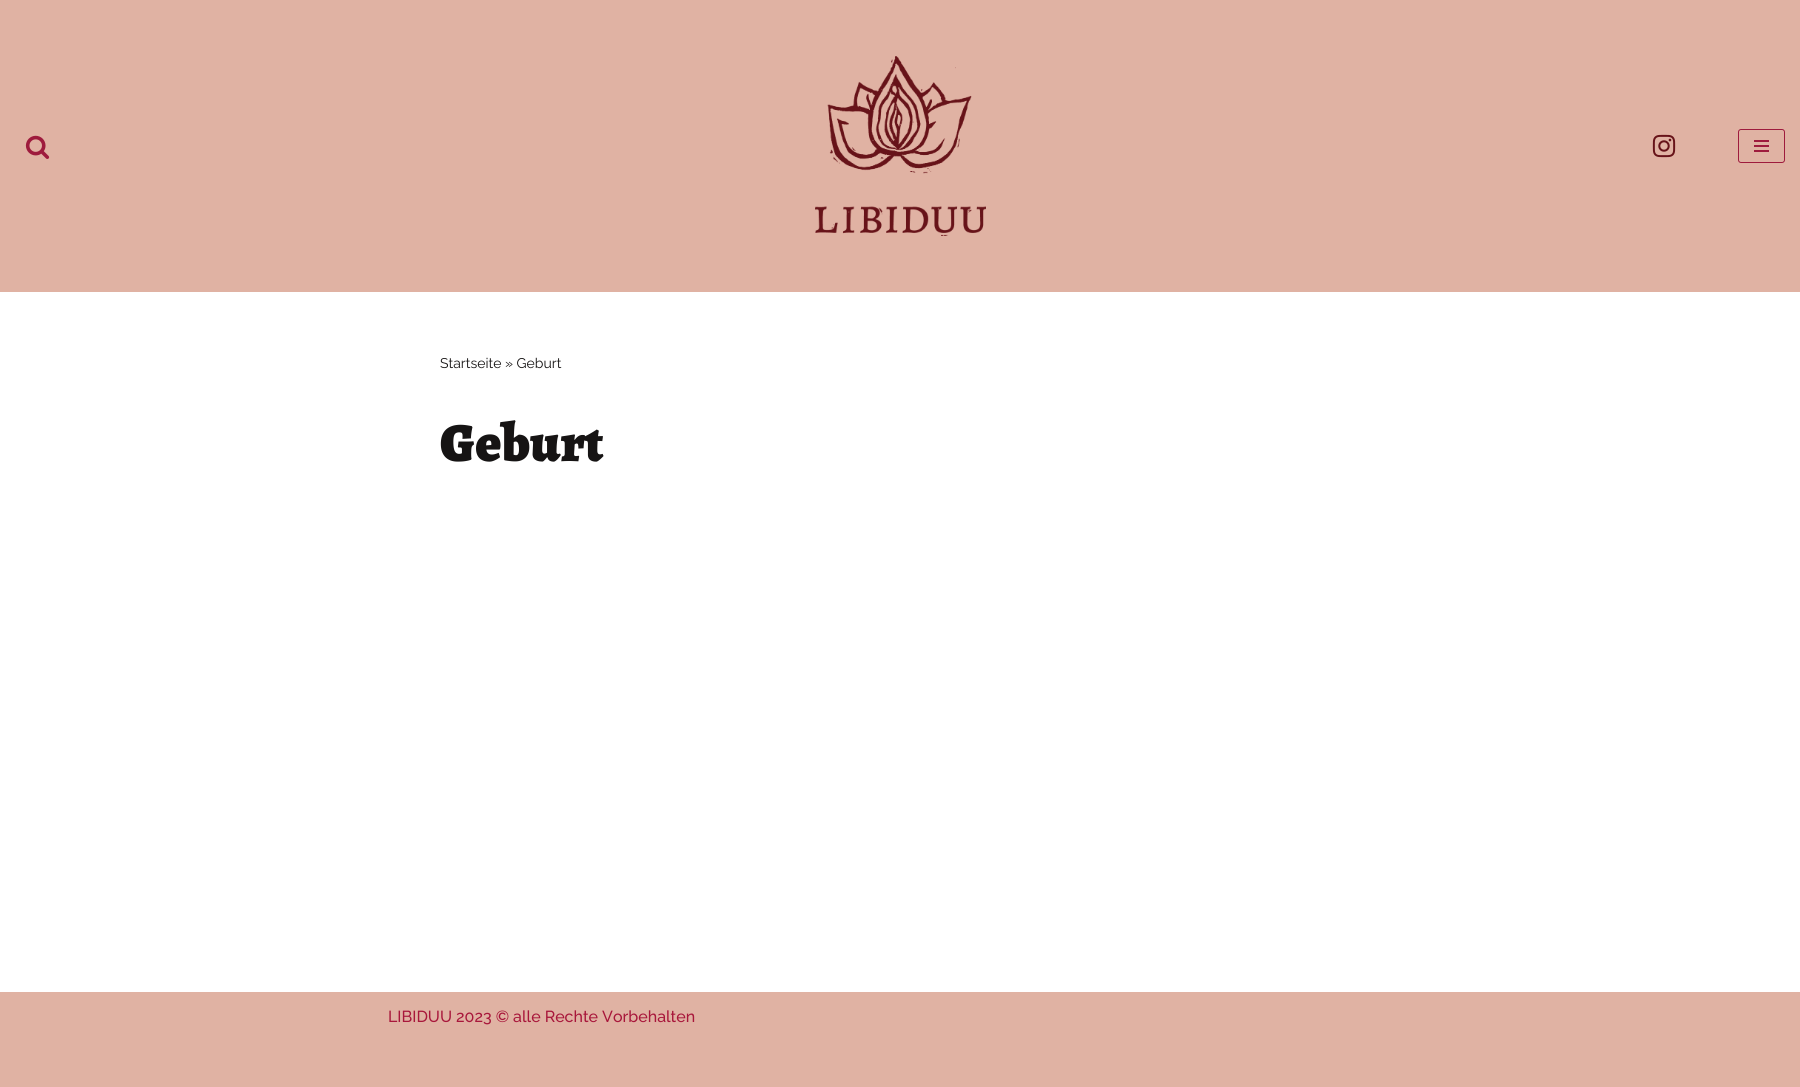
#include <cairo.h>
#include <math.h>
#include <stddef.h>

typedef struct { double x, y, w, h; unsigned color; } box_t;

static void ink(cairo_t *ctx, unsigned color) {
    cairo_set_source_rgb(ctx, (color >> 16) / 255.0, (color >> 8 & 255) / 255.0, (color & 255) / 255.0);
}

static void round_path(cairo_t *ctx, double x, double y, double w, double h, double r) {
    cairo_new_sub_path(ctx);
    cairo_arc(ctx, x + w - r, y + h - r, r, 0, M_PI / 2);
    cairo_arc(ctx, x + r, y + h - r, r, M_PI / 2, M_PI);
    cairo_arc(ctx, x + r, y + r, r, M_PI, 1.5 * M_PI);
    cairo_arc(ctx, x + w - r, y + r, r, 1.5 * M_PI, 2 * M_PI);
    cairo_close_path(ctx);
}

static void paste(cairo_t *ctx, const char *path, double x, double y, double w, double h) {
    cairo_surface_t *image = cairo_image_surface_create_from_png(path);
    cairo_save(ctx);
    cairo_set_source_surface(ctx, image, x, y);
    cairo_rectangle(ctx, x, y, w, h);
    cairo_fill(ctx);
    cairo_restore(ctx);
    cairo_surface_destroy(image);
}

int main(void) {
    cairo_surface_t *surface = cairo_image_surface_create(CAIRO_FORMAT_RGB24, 1800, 1087);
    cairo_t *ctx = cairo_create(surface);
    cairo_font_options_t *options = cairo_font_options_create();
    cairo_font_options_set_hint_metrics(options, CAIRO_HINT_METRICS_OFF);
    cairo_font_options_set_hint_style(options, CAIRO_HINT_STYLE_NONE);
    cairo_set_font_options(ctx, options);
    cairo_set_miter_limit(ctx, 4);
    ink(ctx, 0xFFFFFF);
    cairo_paint(ctx);
    ink(ctx, 0xE0B2A3);
    cairo_rectangle(ctx, 0, 0, 1800, 292);
    cairo_fill(ctx);
    paste(ctx, "media/1.png", 25, 135, 25, 24);
    paste(ctx, "media/2.png", 815, 56, 171, 180);
    paste(ctx, "media/3.png", 1652, 134, 24, 24);
    round_path(ctx, 1738.5, 129.5, 46, 33, 2.5);
    ink(ctx, 0x9E1B3D);
    cairo_set_line_width(ctx, 1);
    cairo_stroke(ctx);
    {
        static const box_t items[] = {
            {1754, 140, 15, 2, 0x9E1B3D},
            {1754, 145, 15, 2, 0x9E1B3D},
            {1754, 150, 15, 2, 0x9E1B3D},
        };
        for (size_t i = 0; i < sizeof items / sizeof *items; i++) {
            ink(ctx, items[i].color);
            cairo_rectangle(ctx, items[i].x, items[i].y, items[i].w, items[i].h);
            cairo_fill(ctx);
        }
    }
    cairo_select_font_face(ctx, "Raleway", CAIRO_FONT_SLANT_NORMAL, CAIRO_FONT_WEIGHT_NORMAL);
    cairo_set_font_size(ctx, 14);
    ink(ctx, 0x161414);
    cairo_move_to(ctx, 440, 368);
    cairo_show_text(ctx, "Startseite » Geburt");
    cairo_select_font_face(ctx, "Alegreya Black", CAIRO_FONT_SLANT_NORMAL, CAIRO_FONT_WEIGHT_NORMAL);
    cairo_set_font_size(ctx, 55);
    cairo_move_to(ctx, 440, 461);
    cairo_show_text(ctx, "Geburt");
    ink(ctx, 0xE0B2A3);
    cairo_rectangle(ctx, 0, 992, 1800, 95);
    cairo_fill(ctx);
    cairo_select_font_face(ctx, "Raleway Medium", CAIRO_FONT_SLANT_NORMAL, CAIRO_FONT_WEIGHT_NORMAL);
    cairo_set_font_size(ctx, 16);
    ink(ctx, 0xA8173B);
    cairo_move_to(ctx, 388, 1022);
    cairo_show_text(ctx, "LIBIDUU 2023 © alle Rechte Vorbehalten");
    cairo_surface_write_to_png(surface, "image.png");
    cairo_font_options_destroy(options);
    cairo_destroy(ctx);
    cairo_surface_destroy(surface);
    return 0;
}
